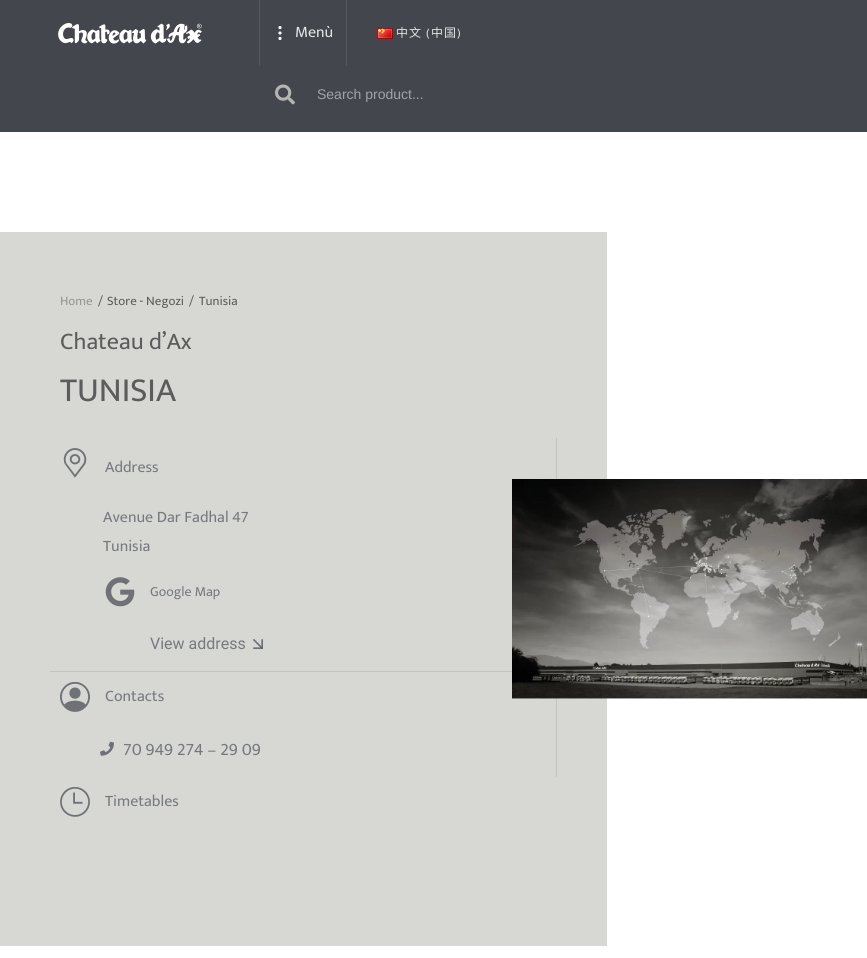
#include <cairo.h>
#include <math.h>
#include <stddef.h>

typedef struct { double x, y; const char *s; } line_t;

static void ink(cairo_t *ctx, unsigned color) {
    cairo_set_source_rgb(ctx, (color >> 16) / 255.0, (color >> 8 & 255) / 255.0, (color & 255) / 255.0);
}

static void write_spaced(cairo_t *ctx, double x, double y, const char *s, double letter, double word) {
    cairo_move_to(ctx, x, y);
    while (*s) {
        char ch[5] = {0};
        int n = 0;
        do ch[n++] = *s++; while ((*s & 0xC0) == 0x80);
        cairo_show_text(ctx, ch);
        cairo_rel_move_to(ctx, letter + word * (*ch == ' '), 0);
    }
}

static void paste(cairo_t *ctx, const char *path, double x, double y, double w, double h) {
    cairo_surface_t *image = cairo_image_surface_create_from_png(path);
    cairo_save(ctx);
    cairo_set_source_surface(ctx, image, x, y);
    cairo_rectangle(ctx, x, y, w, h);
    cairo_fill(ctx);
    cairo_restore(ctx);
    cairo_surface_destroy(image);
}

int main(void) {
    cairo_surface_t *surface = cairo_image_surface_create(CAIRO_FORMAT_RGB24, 867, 958);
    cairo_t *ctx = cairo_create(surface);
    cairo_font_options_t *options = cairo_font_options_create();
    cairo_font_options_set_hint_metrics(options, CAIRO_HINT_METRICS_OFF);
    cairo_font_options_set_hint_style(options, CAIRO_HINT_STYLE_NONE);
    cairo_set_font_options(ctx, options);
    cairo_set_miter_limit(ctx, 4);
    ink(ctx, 0xFFFFFF);
    cairo_paint(ctx);
    ink(ctx, 0x43464D);
    cairo_rectangle(ctx, 0, 0, 867, 132);
    cairo_fill(ctx);
    ink(ctx, 0x54595F);
    cairo_rectangle(ctx, 259, 0, 1, 66);
    cairo_fill(ctx);
    paste(ctx, "media/1.png", 58, 23, 144, 21);
    cairo_rectangle(ctx, 346, 0, 1, 66);
    cairo_fill(ctx);
    ink(ctx, 0xFFFFFF);
    cairo_arc(ctx, 280, 27.6, 1.6, 0, 2 * M_PI);
    cairo_fill(ctx);
    cairo_arc(ctx, 280, 33, 1.6, 0, 2 * M_PI);
    cairo_fill(ctx);
    cairo_arc(ctx, 280, 38.4, 1.6, 0, 2 * M_PI);
    cairo_fill(ctx);
    cairo_select_font_face(ctx, "Mukta", CAIRO_FONT_SLANT_NORMAL, CAIRO_FONT_WEIGHT_NORMAL);
    cairo_set_font_size(ctx, 16);
    ink(ctx, 0xE2E3E4);
    cairo_move_to(ctx, 295, 37);
    cairo_show_text(ctx, "Menù");
    paste(ctx, "media/2.png", 377, 28, 16, 11);
    cairo_select_font_face(ctx, "Noto Sans CJK SC", CAIRO_FONT_SLANT_NORMAL, CAIRO_FONT_WEIGHT_NORMAL);
    cairo_set_font_size(ctx, 12);
    write_spaced(ctx, 396, 37, "中文", 1, 0);
    cairo_select_font_face(ctx, "Mukta", CAIRO_FONT_SLANT_NORMAL, CAIRO_FONT_WEIGHT_NORMAL);
    write_spaced(ctx, 426, 37, "(", 1, 0);
    cairo_select_font_face(ctx, "Noto Sans CJK SC", CAIRO_FONT_SLANT_NORMAL, CAIRO_FONT_WEIGHT_NORMAL);
    write_spaced(ctx, 431, 37, "中国", 1, 0);
    cairo_select_font_face(ctx, "Mukta", CAIRO_FONT_SLANT_NORMAL, CAIRO_FONT_WEIGHT_NORMAL);
    write_spaced(ctx, 457, 37, ")", 1, 0);
    paste(ctx, "media/3.png", 275, 84, 20, 21);
    cairo_select_font_face(ctx, "Liberation Sans", CAIRO_FONT_SLANT_NORMAL, CAIRO_FONT_WEIGHT_NORMAL);
    cairo_set_font_size(ctx, 14);
    ink(ctx, 0xA1A3A6);
    cairo_move_to(ctx, 317, 99);
    cairo_show_text(ctx, "Search product...");
    ink(ctx, 0xD7D8D3);
    cairo_rectangle(ctx, 0, 232, 607, 714);
    cairo_fill(ctx);
    cairo_select_font_face(ctx, "Mukta", CAIRO_FONT_SLANT_NORMAL, CAIRO_FONT_WEIGHT_NORMAL);
    cairo_set_font_size(ctx, 13);
    ink(ctx, 0x959595);
    cairo_move_to(ctx, 60, 305);
    cairo_show_text(ctx, "Home");
    ink(ctx, 0x5C5C5C);
    {
        static const line_t items[] = {
            {98, 305, "/"},
            {107, 305, "Store - Negozi"},
            {189, 305, "/"},
            {199, 305, "Tunisia"},
        };
        for (size_t i = 0; i < sizeof items / sizeof *items; i++) {
            cairo_move_to(ctx, items[i].x, items[i].y);
            cairo_show_text(ctx, items[i].s);
        }
    }
    cairo_set_font_size(ctx, 24);
    cairo_move_to(ctx, 60, 349);
    cairo_show_text(ctx, "Chateau d’Ax");
    cairo_set_font_size(ctx, 34);
    cairo_move_to(ctx, 60, 401);
    cairo_show_text(ctx, "TUNISIA");
    ink(ctx, 0xC3C3C3);
    cairo_rectangle(ctx, 50, 671, 462, 1);
    cairo_fill(ctx);
    cairo_rectangle(ctx, 556, 438, 1, 41);
    cairo_fill(ctx);
    paste(ctx, "media/4.png", 63, 448, 24, 30);
    cairo_set_font_size(ctx, 16);
    ink(ctx, 0x767A7F);
    {
        static const line_t items[] = {
            {105, 472, "Address"},
            {103, 522, "Avenue Dar Fadhal 47"},
            {103, 551, "Tunisia"},
        };
        for (size_t i = 0; i < sizeof items / sizeof *items; i++) {
            cairo_move_to(ctx, items[i].x, items[i].y);
            cairo_show_text(ctx, items[i].s);
        }
    }
    paste(ctx, "media/5.png", 105, 577, 30, 30);
    cairo_set_font_size(ctx, 14);
    cairo_move_to(ctx, 150, 596);
    cairo_show_text(ctx, "Google Map");
    cairo_select_font_face(ctx, "Roboto", CAIRO_FONT_SLANT_NORMAL, CAIRO_FONT_WEIGHT_NORMAL);
    cairo_set_font_size(ctx, 16);
    cairo_move_to(ctx, 150, 649);
    cairo_show_text(ctx, "View address");
    paste(ctx, "media/6.png", 253, 639, 10, 10);
    ink(ctx, 0xC3C3C3);
    cairo_rectangle(ctx, 556, 698, 1, 79);
    cairo_fill(ctx);
    paste(ctx, "media/7.png", 60, 682, 30, 30);
    cairo_select_font_face(ctx, "Mukta", CAIRO_FONT_SLANT_NORMAL, CAIRO_FONT_WEIGHT_NORMAL);
    ink(ctx, 0x767A7F);
    cairo_move_to(ctx, 105, 701);
    cairo_show_text(ctx, "Contacts");
    paste(ctx, "media/8.png", 100, 741, 14, 15);
    cairo_set_font_size(ctx, 17.5);
    cairo_move_to(ctx, 123, 755);
    cairo_show_text(ctx, "70 949 274 – 29 09");
    paste(ctx, "media/9.png", 60, 787, 30, 30);
    cairo_set_font_size(ctx, 16);
    cairo_move_to(ctx, 105, 806);
    cairo_show_text(ctx, "Timetables");
    paste(ctx, "media/10.png", 512, 479, 355, 220);
    cairo_surface_write_to_png(surface, "image.png");
    cairo_font_options_destroy(options);
    cairo_destroy(ctx);
    cairo_surface_destroy(surface);
    return 0;
}
